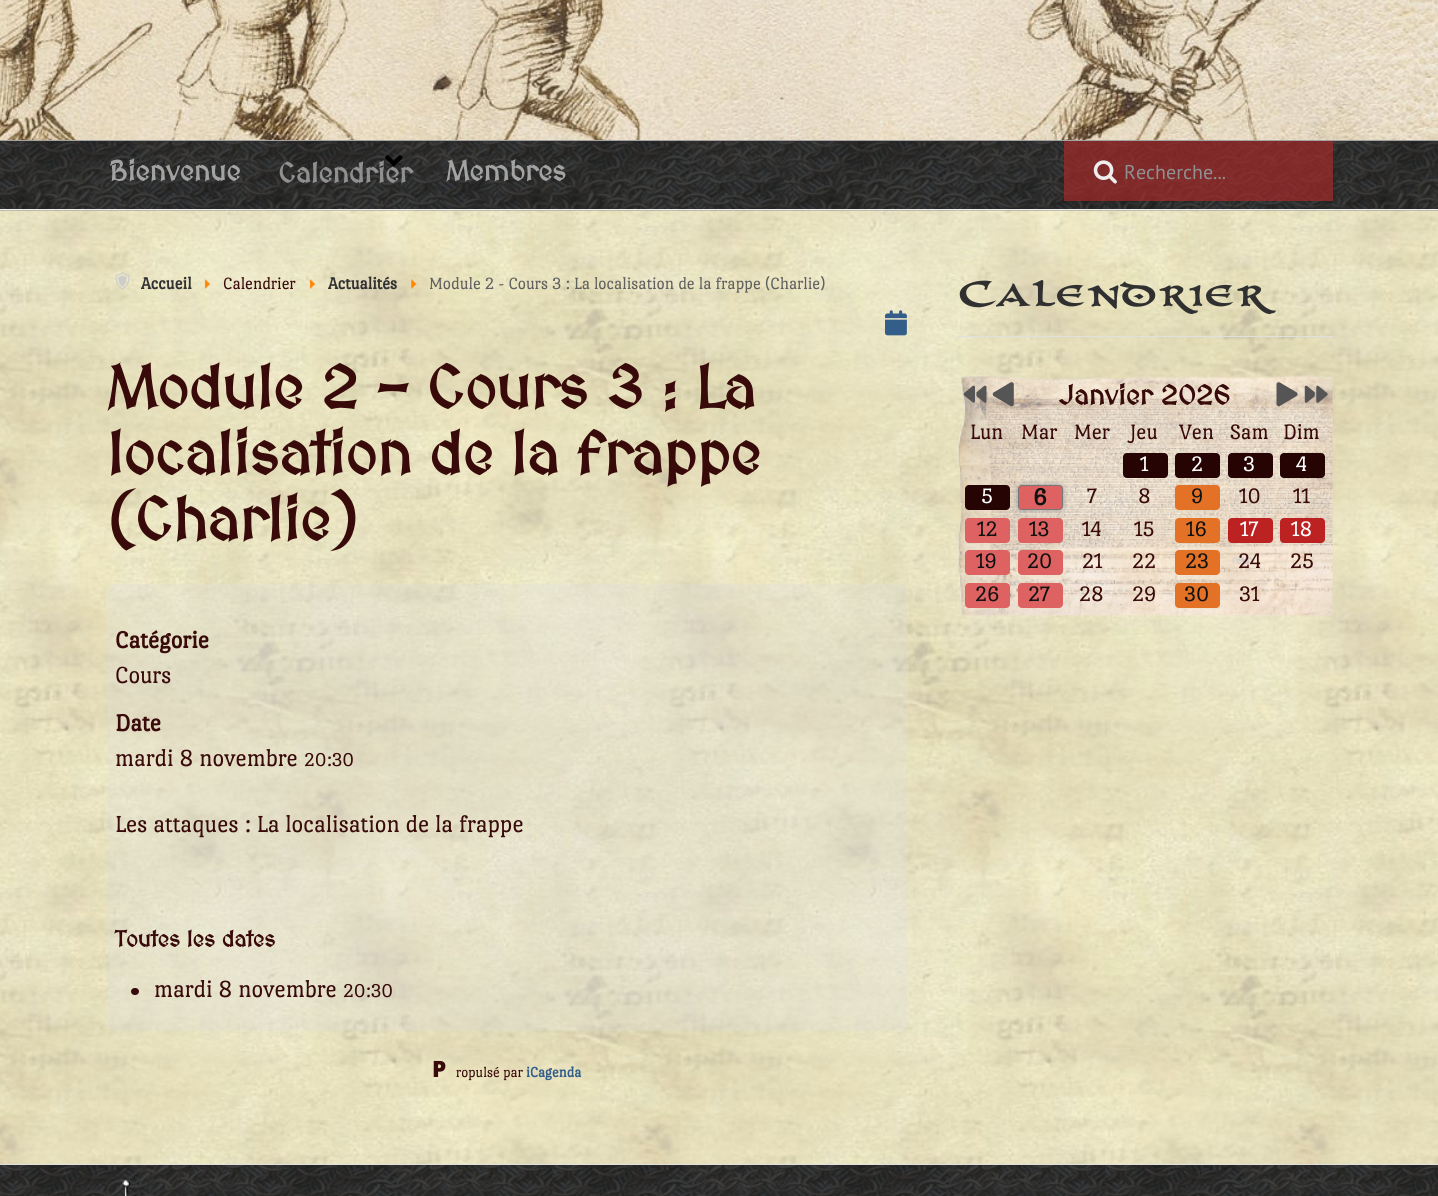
#include <cairo.h>
#include <math.h>
#include <stddef.h>

typedef struct { double x, y; const char *s; } line_t;

static void ink(cairo_t *ctx, unsigned color) {
    cairo_set_source_rgb(ctx, (color >> 16) / 255.0, (color >> 8 & 255) / 255.0, (color & 255) / 255.0);
}

static void write_spaced(cairo_t *ctx, double x, double y, const char *s, double letter, double word) {
    cairo_move_to(ctx, x, y);
    while (*s) {
        char ch[5] = {0};
        int n = 0;
        do ch[n++] = *s++; while ((*s & 0xC0) == 0x80);
        cairo_show_text(ctx, ch);
        cairo_rel_move_to(ctx, letter + word * (*ch == ' '), 0);
    }
}

static void round_path(cairo_t *ctx, double x, double y, double w, double h, double r) {
    cairo_new_sub_path(ctx);
    cairo_arc(ctx, x + w - r, y + h - r, r, 0, M_PI / 2);
    cairo_arc(ctx, x + r, y + h - r, r, M_PI / 2, M_PI);
    cairo_arc(ctx, x + r, y + r, r, M_PI, 1.5 * M_PI);
    cairo_arc(ctx, x + w - r, y + r, r, 1.5 * M_PI, 2 * M_PI);
    cairo_close_path(ctx);
}

static void blur_box(cairo_t *ctx, double x, double y, double w, double h, double r, double blur, double alpha) {
    cairo_push_group_with_content(ctx, CAIRO_CONTENT_ALPHA);
    cairo_set_operator(ctx, CAIRO_OPERATOR_SOURCE);
    for (int i = 15; i >= -15 && fmin(w, h) + blur * i / 3 > 0; i -= 2) {
        double e = blur * i / 6;
        cairo_set_source_rgba(ctx, 0, 0, 0, alpha * erfc((i - 1) / 8.5) / 2);
        round_path(ctx, x - e, y - e, w + 2 * e, h + 2 * e, fmax(0, fmin(r + e + blur * .6, fmin(w, h) / 2 + e)));
        cairo_fill(ctx);
    }
    cairo_pattern_t *soft = cairo_pop_group(ctx);
    cairo_mask(ctx, soft);
    cairo_pattern_destroy(soft);
}

static void paste(cairo_t *ctx, const char *path, double x, double y, double w, double h) {
    cairo_surface_t *image = cairo_image_surface_create_from_png(path);
    cairo_save(ctx);
    cairo_set_source_surface(ctx, image, x, y);
    cairo_rectangle(ctx, x, y, w, h);
    cairo_fill(ctx);
    cairo_restore(ctx);
    cairo_surface_destroy(image);
}

int main(void) {
    cairo_surface_t *surface = cairo_image_surface_create(CAIRO_FORMAT_RGB24, 1438, 1196);
    cairo_t *ctx = cairo_create(surface);
    cairo_font_options_t *options = cairo_font_options_create();
    cairo_font_options_set_hint_metrics(options, CAIRO_HINT_METRICS_OFF);
    cairo_font_options_set_hint_style(options, CAIRO_HINT_STYLE_NONE);
    cairo_set_font_options(ctx, options);
    cairo_set_miter_limit(ctx, 4);
    ink(ctx, 0xFFFFFF);
    cairo_paint(ctx);
    paste(ctx, "media/1.png", 0, 0, 1438, 140);
    ink(ctx, 0xA3A3A3);
    cairo_rectangle(ctx, 0, 140, 1438, 1);
    cairo_fill(ctx);
    ink(ctx, 0x2E2D2E);
    cairo_rectangle(ctx, 0, 141, 1438, 1);
    cairo_fill(ctx);
    paste(ctx, "media/5.png", 0, 210, 1438, 954);
    paste(ctx, "media/2.png", 0, 141, 1438, 70);
    ink(ctx, 0xEEEEEE);
    cairo_rectangle(ctx, 0, 209, 1438, 1);
    cairo_fill(ctx);
    cairo_select_font_face(ctx, "MedievalSharp", CAIRO_FONT_SLANT_NORMAL, CAIRO_FONT_WEIGHT_BOLD);
    cairo_set_font_size(ctx, 28);
    ink(ctx, 0xA3A3A3);
    cairo_move_to(ctx, 109, 181);
    cairo_show_text(ctx, "Bienvenue");
    ink(ctx, 0x909090);
    cairo_move_to(ctx, 278, 183);
    cairo_show_text(ctx, "Calendrier");
    paste(ctx, "media/3.png", 385, 155, 18, 12);
    ink(ctx, 0xA3A3A3);
    cairo_move_to(ctx, 446, 181);
    cairo_show_text(ctx, "Membres");
    cairo_set_source_rgba(ctx, 0.647, 0.165, 0.165, 0.7);
    cairo_rectangle(ctx, 1064, 141, 269, 60);
    cairo_fill(ctx);
    paste(ctx, "media/4.png", 1093, 160, 24, 24);
    cairo_select_font_face(ctx, "PT Sans", CAIRO_FONT_SLANT_NORMAL, CAIRO_FONT_WEIGHT_NORMAL);
    cairo_set_font_size(ctx, 20);
    ink(ctx, 0x909090);
    cairo_move_to(ctx, 1124, 179);
    cairo_show_text(ctx, "Recherche...");
    paste(ctx, "media/6.png", 115, 272, 15, 18);
    cairo_select_font_face(ctx, "Port Lligat Slab", CAIRO_FONT_SLANT_NORMAL, CAIRO_FONT_WEIGHT_BOLD);
    cairo_set_font_size(ctx, 17.5);
    ink(ctx, 0x303030);
    cairo_move_to(ctx, 141, 289);
    cairo_show_text(ctx, "Accueil");
    paste(ctx, "media/7.png", 204, 279, 7, 10);
    cairo_select_font_face(ctx, "Port Lligat Slab", CAIRO_FONT_SLANT_NORMAL, CAIRO_FONT_WEIGHT_NORMAL);
    ink(ctx, 0x380A0A);
    cairo_move_to(ctx, 223, 289);
    cairo_show_text(ctx, "Calendrier");
    paste(ctx, "media/8.png", 309, 279, 7, 10);
    cairo_select_font_face(ctx, "Port Lligat Slab", CAIRO_FONT_SLANT_NORMAL, CAIRO_FONT_WEIGHT_BOLD);
    ink(ctx, 0x303030);
    cairo_move_to(ctx, 328, 289);
    cairo_show_text(ctx, "Actualités");
    paste(ctx, "media/9.png", 411, 279, 6, 10);
    cairo_select_font_face(ctx, "Port Lligat Slab", CAIRO_FONT_SLANT_NORMAL, CAIRO_FONT_WEIGHT_NORMAL);
    ink(ctx, 0x606060);
    cairo_move_to(ctx, 429, 289);
    cairo_show_text(ctx, "Module 2 - Cours 3 : La localisation de la frappe (Charlie)");
    paste(ctx, "media/10.png", 885, 310, 22, 26);
    cairo_select_font_face(ctx, "MedievalSharp", CAIRO_FONT_SLANT_NORMAL, CAIRO_FONT_WEIGHT_BOLD);
    cairo_set_font_size(ctx, 60);
    ink(ctx, 0x380A0A);
    {
        static const line_t items[] = {
            {107, 409, "Module 2 - Cours 3 : La"},
            {107, 475, "localisation de la frappe"},
            {107, 541, "(Charlie)"},
        };
        for (size_t i = 0; i < sizeof items / sizeof *items; i++) {
            cairo_move_to(ctx, items[i].x, items[i].y);
            cairo_show_text(ctx, items[i].s);
        }
    }
    cairo_set_source_rgba(ctx, 0.867, 0.867, 0.867, 0.3);
    round_path(ctx, 108, 584, 800, 447, 8);
    cairo_fill(ctx);
    cairo_select_font_face(ctx, "Port Lligat Slab", CAIRO_FONT_SLANT_NORMAL, CAIRO_FONT_WEIGHT_BOLD);
    cairo_set_font_size(ctx, 25);
    ink(ctx, 0x380A0A);
    cairo_move_to(ctx, 115, 648);
    cairo_show_text(ctx, "Catégorie");
    cairo_select_font_face(ctx, "Port Lligat Slab", CAIRO_FONT_SLANT_NORMAL, CAIRO_FONT_WEIGHT_NORMAL);
    cairo_move_to(ctx, 115, 683);
    cairo_show_text(ctx, "Cours");
    cairo_select_font_face(ctx, "Port Lligat Slab", CAIRO_FONT_SLANT_NORMAL, CAIRO_FONT_WEIGHT_BOLD);
    cairo_move_to(ctx, 115, 731);
    cairo_show_text(ctx, "Date");
    cairo_select_font_face(ctx, "Port Lligat Slab", CAIRO_FONT_SLANT_NORMAL, CAIRO_FONT_WEIGHT_NORMAL);
    cairo_move_to(ctx, 115, 766);
    cairo_show_text(ctx, "mardi 8 novembre");
    cairo_set_font_size(ctx, 20);
    cairo_move_to(ctx, 304, 766);
    cairo_show_text(ctx, "20:30");
    cairo_set_font_size(ctx, 25);
    cairo_move_to(ctx, 115, 832);
    cairo_show_text(ctx, "Les attaques : La localisation de la frappe");
    cairo_select_font_face(ctx, "MedievalSharp", CAIRO_FONT_SLANT_NORMAL, CAIRO_FONT_WEIGHT_BOLD);
    cairo_set_font_size(ctx, 22.5);
    cairo_move_to(ctx, 115, 947);
    cairo_show_text(ctx, "Toutes les dates");
    round_path(ctx, 131, 988, 8, 7, 3.5);
    cairo_fill(ctx);
    cairo_select_font_face(ctx, "Port Lligat Slab", CAIRO_FONT_SLANT_NORMAL, CAIRO_FONT_WEIGHT_NORMAL);
    cairo_set_font_size(ctx, 25);
    cairo_move_to(ctx, 154, 997);
    cairo_show_text(ctx, "mardi 8 novembre");
    cairo_set_font_size(ctx, 20);
    cairo_move_to(ctx, 343, 997);
    cairo_show_text(ctx, "20:30");
    cairo_select_font_face(ctx, "Noto Sans Black", CAIRO_FONT_SLANT_NORMAL, CAIRO_FONT_WEIGHT_NORMAL);
    cairo_set_font_size(ctx, 22.5);
    cairo_move_to(ctx, 432, 1077);
    cairo_show_text(ctx, "P");
    cairo_select_font_face(ctx, "Port Lligat Slab", CAIRO_FONT_SLANT_NORMAL, CAIRO_FONT_WEIGHT_NORMAL);
    cairo_set_font_size(ctx, 15);
    cairo_move_to(ctx, 456, 1077);
    cairo_show_text(ctx, "ropulsé par");
    cairo_select_font_face(ctx, "Port Lligat Slab", CAIRO_FONT_SLANT_NORMAL, CAIRO_FONT_WEIGHT_BOLD);
    ink(ctx, 0x345E8A);
    cairo_move_to(ctx, 526, 1077);
    cairo_show_text(ctx, "iCagenda");
    ink(ctx, 0xE0E0E0);
    cairo_rectangle(ctx, 958, 336, 375, 1);
    cairo_fill(ctx);
    cairo_select_font_face(ctx, "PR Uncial", CAIRO_FONT_SLANT_NORMAL, CAIRO_FONT_WEIGHT_BOLD);
    cairo_set_font_size(ctx, 40);
    ink(ctx, 0x303030);
    write_spaced(ctx, 957, 306, "Calendrier", 1.25, 0);
    paste(ctx, "media/11.png", 957, 375, 376, 241);
    paste(ctx, "media/12.png", 963, 385, 24, 18);
    paste(ctx, "media/13.png", 992, 382, 22, 25);
    cairo_select_font_face(ctx, "MedievalSharp", CAIRO_FONT_SLANT_NORMAL, CAIRO_FONT_WEIGHT_BOLD);
    cairo_set_font_size(ctx, 27.5);
    ink(ctx, 0x380A0A);
    cairo_move_to(ctx, 1059, 405);
    cairo_show_text(ctx, "Janvier 2026");
    paste(ctx, "media/14.png", 1276, 382, 22, 25);
    paste(ctx, "media/15.png", 1304, 385, 24, 18);
    cairo_select_font_face(ctx, "Port Lligat Slab", CAIRO_FONT_SLANT_NORMAL, CAIRO_FONT_WEIGHT_NORMAL);
    cairo_set_font_size(ctx, 22.5);
    {
        static const line_t items[] = {
            {970, 439, "Lun"},
            {1021, 439, "Mar"},
            {1074, 439, "Mer"},
            {1130, 439, "Jeu"},
            {1179, 439, "Ven"},
            {1230, 439, "Sam"},
            {1283, 439, "Dim"},
        };
        for (size_t i = 0; i < sizeof items / sizeof *items; i++) {
            cairo_move_to(ctx, items[i].x, items[i].y);
            cairo_show_text(ctx, items[i].s);
        }
    }
    ink(ctx, 0x260404);
    round_path(ctx, 1123, 453, 45, 25, 4);
    cairo_fill(ctx);
    ink(ctx, 0xFFFFFF);
    cairo_move_to(ctx, 1140, 471);
    cairo_show_text(ctx, "1");
    ink(ctx, 0x260404);
    round_path(ctx, 1175, 453, 45, 25, 4);
    cairo_fill(ctx);
    ink(ctx, 0xFFFFFF);
    cairo_move_to(ctx, 1191, 471);
    cairo_show_text(ctx, "2");
    ink(ctx, 0x260404);
    round_path(ctx, 1228, 453, 45, 25, 4);
    cairo_fill(ctx);
    ink(ctx, 0xFFFFFF);
    cairo_move_to(ctx, 1243, 471);
    cairo_show_text(ctx, "3");
    ink(ctx, 0x260404);
    round_path(ctx, 1280, 453, 45, 25, 4);
    cairo_fill(ctx);
    ink(ctx, 0xFFFFFF);
    cairo_move_to(ctx, 1296, 471);
    cairo_show_text(ctx, "4");
    ink(ctx, 0x260404);
    round_path(ctx, 965, 485, 45, 25, 4);
    cairo_fill(ctx);
    ink(ctx, 0xFFFFFF);
    cairo_move_to(ctx, 981, 503);
    cairo_show_text(ctx, "5");
    ink(ctx, 0xDE6262);
    round_path(ctx, 1018, 485, 45, 25, 4);
    cairo_fill(ctx);
    cairo_save(ctx);
    cairo_set_fill_rule(ctx, CAIRO_FILL_RULE_EVEN_ODD);
    cairo_new_path(ctx);
    cairo_move_to(ctx, 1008, 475);
    cairo_line_to(ctx, 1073, 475);
    cairo_line_to(ctx, 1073, 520);
    cairo_line_to(ctx, 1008, 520);
    cairo_close_path(ctx);
    cairo_move_to(ctx, 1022, 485);
    cairo_line_to(ctx, 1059, 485);
    cairo_curve_to(ctx, 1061, 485, 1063, 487, 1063, 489);
    cairo_line_to(ctx, 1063, 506);
    cairo_curve_to(ctx, 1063, 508, 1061, 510, 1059, 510);
    cairo_line_to(ctx, 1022, 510);
    cairo_curve_to(ctx, 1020, 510, 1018, 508, 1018, 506);
    cairo_line_to(ctx, 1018, 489);
    cairo_curve_to(ctx, 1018, 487, 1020, 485, 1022, 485);
    cairo_close_path(ctx);
    cairo_clip(ctx);
    ink(ctx, 0x999999);
    blur_box(ctx, 1018, 485, 45, 25, 4, 3, 1);
    cairo_restore(ctx);
    round_path(ctx, 1018.5, 485.5, 44, 24, 3.5);
    ink(ctx, 0x777777);
    cairo_set_line_width(ctx, 1);
    cairo_stroke(ctx);
    cairo_select_font_face(ctx, "Port Lligat Slab", CAIRO_FONT_SLANT_NORMAL, CAIRO_FONT_WEIGHT_BOLD);
    cairo_set_font_size(ctx, 25);
    ink(ctx, 0x111111);
    cairo_move_to(ctx, 1033, 505);
    cairo_show_text(ctx, "6");
    cairo_select_font_face(ctx, "Port Lligat Slab", CAIRO_FONT_SLANT_NORMAL, CAIRO_FONT_WEIGHT_NORMAL);
    cairo_set_font_size(ctx, 22.5);
    ink(ctx, 0x380A0A);
    cairo_move_to(ctx, 1087, 503);
    cairo_show_text(ctx, "7");
    cairo_move_to(ctx, 1138, 503);
    cairo_show_text(ctx, "8");
    ink(ctx, 0xE37226);
    round_path(ctx, 1175, 485, 45, 25, 4);
    cairo_fill(ctx);
    ink(ctx, 0x111111);
    cairo_move_to(ctx, 1191, 503);
    cairo_show_text(ctx, "9");
    ink(ctx, 0x380A0A);
    cairo_move_to(ctx, 1239, 503);
    cairo_show_text(ctx, "10");
    cairo_move_to(ctx, 1293, 503);
    cairo_show_text(ctx, "11");
    ink(ctx, 0xDE6262);
    round_path(ctx, 965, 518, 45, 25, 4);
    cairo_fill(ctx);
    ink(ctx, 0x111111);
    cairo_move_to(ctx, 977, 536);
    cairo_show_text(ctx, "12");
    ink(ctx, 0xDE6262);
    round_path(ctx, 1018, 518, 45, 25, 4);
    cairo_fill(ctx);
    ink(ctx, 0x111111);
    cairo_move_to(ctx, 1029, 536);
    cairo_show_text(ctx, "13");
    ink(ctx, 0x380A0A);
    cairo_move_to(ctx, 1082, 536);
    cairo_show_text(ctx, "14");
    cairo_move_to(ctx, 1134, 536);
    cairo_show_text(ctx, "15");
    ink(ctx, 0xE37226);
    round_path(ctx, 1175, 518, 45, 25, 4);
    cairo_fill(ctx);
    ink(ctx, 0x111111);
    cairo_move_to(ctx, 1186, 536);
    cairo_show_text(ctx, "16");
    ink(ctx, 0xBD2222);
    round_path(ctx, 1228, 518, 45, 25, 4);
    cairo_fill(ctx);
    ink(ctx, 0xFFFFFF);
    cairo_move_to(ctx, 1240, 536);
    cairo_show_text(ctx, "17");
    ink(ctx, 0xBD2222);
    round_path(ctx, 1280, 518, 45, 25, 4);
    cairo_fill(ctx);
    ink(ctx, 0xFFFFFF);
    cairo_move_to(ctx, 1291, 536);
    cairo_show_text(ctx, "18");
    ink(ctx, 0xDE6262);
    round_path(ctx, 965, 550, 45, 25, 4);
    cairo_fill(ctx);
    ink(ctx, 0x111111);
    cairo_move_to(ctx, 976, 568);
    cairo_show_text(ctx, "19");
    ink(ctx, 0xDE6262);
    round_path(ctx, 1018, 550, 45, 25, 4);
    cairo_fill(ctx);
    ink(ctx, 0x111111);
    cairo_move_to(ctx, 1027, 568);
    cairo_show_text(ctx, "20");
    ink(ctx, 0x380A0A);
    cairo_move_to(ctx, 1082, 568);
    cairo_show_text(ctx, "21");
    cairo_move_to(ctx, 1132, 568);
    cairo_show_text(ctx, "22");
    ink(ctx, 0xE37226);
    round_path(ctx, 1175, 550, 45, 25, 4);
    cairo_fill(ctx);
    ink(ctx, 0x111111);
    cairo_move_to(ctx, 1185, 568);
    cairo_show_text(ctx, "23");
    ink(ctx, 0x380A0A);
    cairo_move_to(ctx, 1238, 568);
    cairo_show_text(ctx, "24");
    cairo_move_to(ctx, 1290, 568);
    cairo_show_text(ctx, "25");
    ink(ctx, 0xDE6262);
    round_path(ctx, 965, 583, 45, 25, 4);
    cairo_fill(ctx);
    ink(ctx, 0x111111);
    cairo_move_to(ctx, 975, 601);
    cairo_show_text(ctx, "26");
    ink(ctx, 0xDE6262);
    round_path(ctx, 1018, 583, 45, 25, 4);
    cairo_fill(ctx);
    ink(ctx, 0x111111);
    cairo_move_to(ctx, 1028, 601);
    cairo_show_text(ctx, "27");
    ink(ctx, 0x380A0A);
    cairo_move_to(ctx, 1079, 601);
    cairo_show_text(ctx, "28");
    cairo_move_to(ctx, 1132, 601);
    cairo_show_text(ctx, "29");
    ink(ctx, 0xE37226);
    round_path(ctx, 1175, 583, 45, 25, 4);
    cairo_fill(ctx);
    ink(ctx, 0x111111);
    cairo_move_to(ctx, 1184, 601);
    cairo_show_text(ctx, "30");
    ink(ctx, 0x380A0A);
    cairo_move_to(ctx, 1239, 601);
    cairo_show_text(ctx, "31");
    paste(ctx, "media/16.png", 0, 1165, 1438, 31);
    ink(ctx, 0xE0E0E0);
    cairo_rectangle(ctx, 0, 1164, 1438, 1);
    cairo_fill(ctx);
    paste(ctx, "media/17.png", 122, 1180, 9, 16);
    cairo_surface_write_to_png(surface, "image.png");
    cairo_font_options_destroy(options);
    cairo_destroy(ctx);
    cairo_surface_destroy(surface);
    return 0;
}
